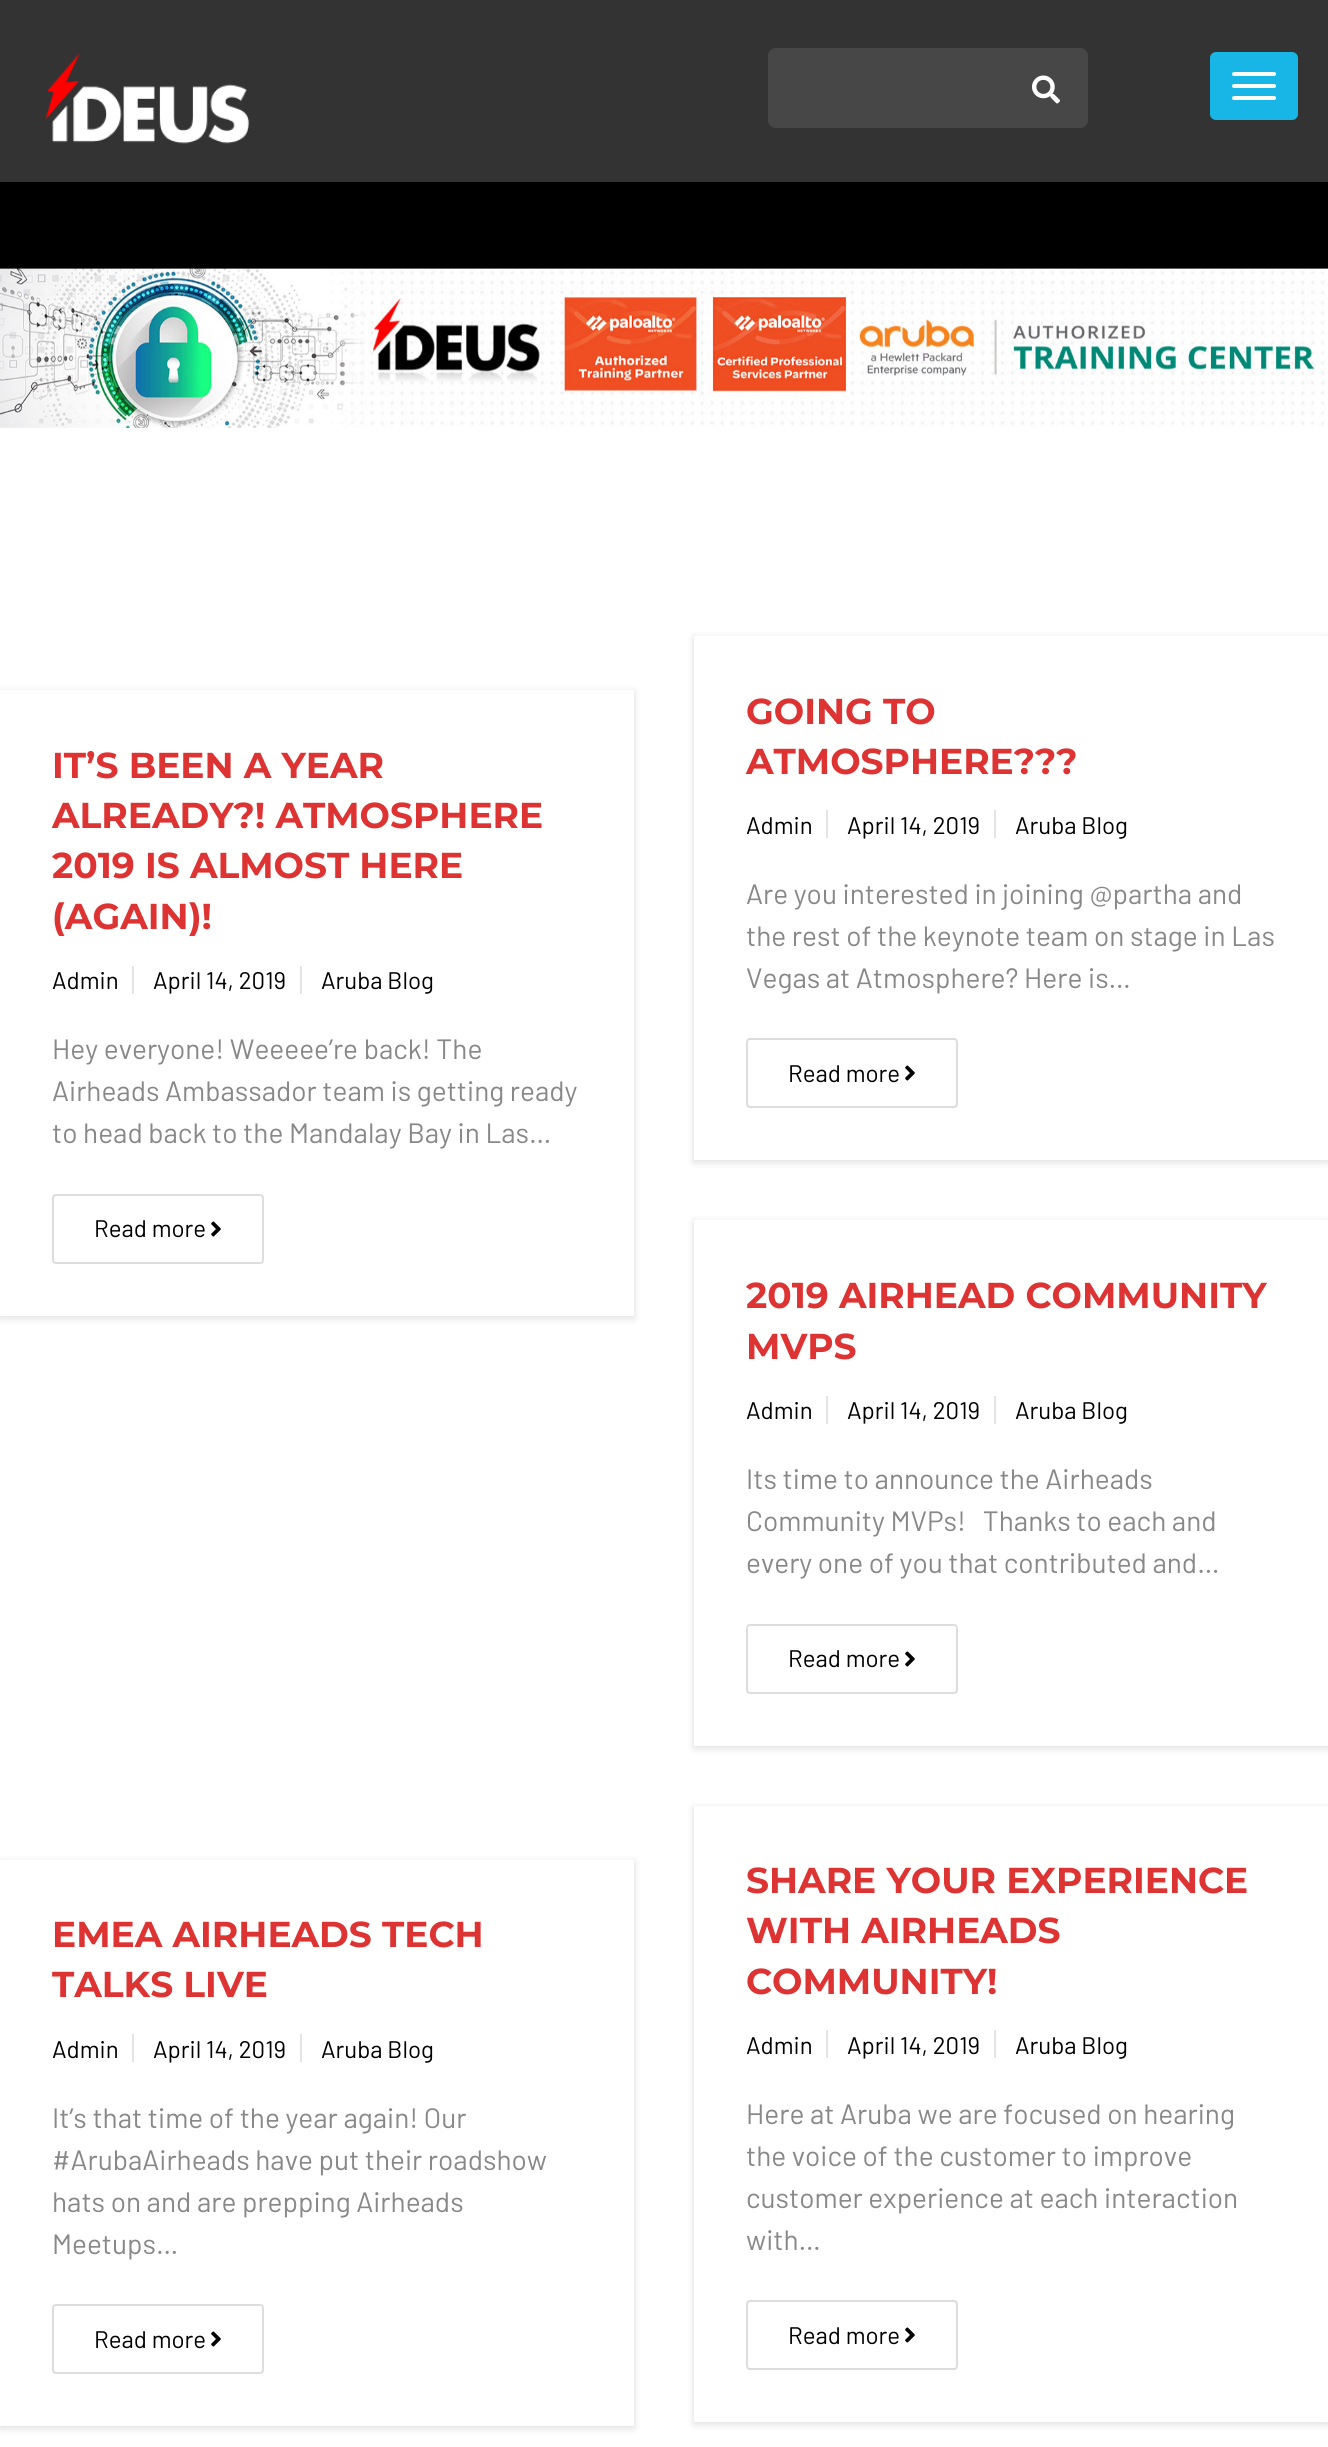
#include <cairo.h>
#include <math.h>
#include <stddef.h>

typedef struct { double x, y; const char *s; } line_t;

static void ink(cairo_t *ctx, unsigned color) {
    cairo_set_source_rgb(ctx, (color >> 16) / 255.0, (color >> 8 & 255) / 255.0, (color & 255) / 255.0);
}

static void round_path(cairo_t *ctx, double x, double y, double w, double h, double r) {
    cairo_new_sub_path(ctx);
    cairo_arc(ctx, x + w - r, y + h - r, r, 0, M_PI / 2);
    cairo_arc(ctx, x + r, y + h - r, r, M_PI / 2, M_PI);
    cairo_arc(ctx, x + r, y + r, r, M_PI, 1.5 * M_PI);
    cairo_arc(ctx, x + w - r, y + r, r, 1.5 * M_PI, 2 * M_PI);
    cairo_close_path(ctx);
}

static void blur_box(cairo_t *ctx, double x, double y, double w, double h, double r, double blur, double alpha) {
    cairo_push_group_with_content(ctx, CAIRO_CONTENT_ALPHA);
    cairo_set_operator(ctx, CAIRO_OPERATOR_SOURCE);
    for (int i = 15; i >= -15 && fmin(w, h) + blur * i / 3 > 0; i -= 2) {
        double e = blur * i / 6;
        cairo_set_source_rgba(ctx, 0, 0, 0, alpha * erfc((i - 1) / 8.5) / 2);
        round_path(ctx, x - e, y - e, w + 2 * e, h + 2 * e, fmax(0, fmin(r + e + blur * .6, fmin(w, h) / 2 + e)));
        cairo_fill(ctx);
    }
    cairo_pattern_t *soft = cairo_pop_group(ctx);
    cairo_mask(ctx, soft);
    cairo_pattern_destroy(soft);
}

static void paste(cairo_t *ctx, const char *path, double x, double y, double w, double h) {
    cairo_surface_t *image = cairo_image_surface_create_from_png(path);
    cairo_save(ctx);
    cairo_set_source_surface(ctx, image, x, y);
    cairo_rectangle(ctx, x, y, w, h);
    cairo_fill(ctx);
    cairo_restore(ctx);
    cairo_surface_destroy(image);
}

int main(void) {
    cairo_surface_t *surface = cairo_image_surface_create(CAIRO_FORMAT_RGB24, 1328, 2447);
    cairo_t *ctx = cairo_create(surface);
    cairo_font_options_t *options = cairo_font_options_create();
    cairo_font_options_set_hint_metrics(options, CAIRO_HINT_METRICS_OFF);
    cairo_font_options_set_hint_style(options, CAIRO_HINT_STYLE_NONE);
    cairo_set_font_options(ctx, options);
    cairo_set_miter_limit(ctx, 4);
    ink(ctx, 0xFFFFFF);
    cairo_paint(ctx);
    ink(ctx, 0x333333);
    cairo_rectangle(ctx, 0, 0, 1328, 182);
    cairo_fill(ctx);
    paste(ctx, "media/1.png", 45, 53, 205, 91);
    ink(ctx, 0x474747);
    round_path(ctx, 768, 48, 320, 80, 8);
    cairo_fill(ctx);
    paste(ctx, "media/2.png", 1032, 75, 28, 29);
    ink(ctx, 0x17B6E6);
    round_path(ctx, 1211, 53, 86, 66, 5);
    cairo_fill_preserve(ctx);
    cairo_stroke(ctx);
    ink(ctx, 0xFFFFFF);
    round_path(ctx, 1232, 72, 44, 4, 2);
    cairo_fill(ctx);
    round_path(ctx, 1232, 84, 44, 4, 2);
    cairo_fill(ctx);
    round_path(ctx, 1232, 96, 44, 4, 2);
    cairo_fill(ctx);
    paste(ctx, "media/3.png", 0, 182, 1328, 246);
    cairo_save(ctx);
    cairo_set_fill_rule(ctx, CAIRO_FILL_RULE_EVEN_ODD);
    cairo_new_path(ctx);
    cairo_move_to(ctx, 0, 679);
    cairo_line_to(ctx, 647, 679);
    cairo_line_to(ctx, 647, 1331);
    cairo_line_to(ctx, 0, 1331);
    cairo_close_path(ctx);
    cairo_move_to(ctx, 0, 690);
    cairo_line_to(ctx, 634, 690);
    cairo_line_to(ctx, 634, 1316);
    cairo_line_to(ctx, 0, 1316);
    cairo_close_path(ctx);
    cairo_clip(ctx);
    ink(ctx, 0x000000);
    blur_box(ctx, 0, 692, 634, 626, 0, 4, 0.14);
    cairo_restore(ctx);
    cairo_select_font_face(ctx, "Montserrat", CAIRO_FONT_SLANT_NORMAL, CAIRO_FONT_WEIGHT_BOLD);
    cairo_set_font_size(ctx, 36);
    ink(ctx, 0xDD3333);
    {
        static const line_t items[] = {
            {52, 778, "IT’S BEEN A YEAR"},
            {52, 828, "ALREADY?! ATMOSPHERE"},
            {52, 878, "2019 IS ALMOST HERE"},
            {52, 929, "(AGAIN)!"},
        };
        for (size_t i = 0; i < sizeof items / sizeof *items; i++) {
            cairo_move_to(ctx, items[i].x, items[i].y);
            cairo_show_text(ctx, items[i].s);
        }
    }
    cairo_select_font_face(ctx, "Barlow", CAIRO_FONT_SLANT_NORMAL, CAIRO_FONT_WEIGHT_NORMAL);
    cairo_set_font_size(ctx, 24);
    ink(ctx, 0x000000);
    cairo_move_to(ctx, 52, 989);
    cairo_show_text(ctx, "Admin");
    ink(ctx, 0xE4E4E4);
    cairo_rectangle(ctx, 132, 966, 2, 28);
    cairo_fill(ctx);
    ink(ctx, 0x000000);
    cairo_move_to(ctx, 153, 989);
    cairo_show_text(ctx, "April 14, 2019");
    ink(ctx, 0xE4E4E4);
    cairo_rectangle(ctx, 300, 966, 2, 28);
    cairo_fill(ctx);
    ink(ctx, 0x000000);
    cairo_move_to(ctx, 321, 989);
    cairo_show_text(ctx, "Aruba Blog");
    cairo_set_font_size(ctx, 28);
    ink(ctx, 0x888888);
    {
        static const line_t items[] = {
            {52, 1059, "Hey everyone! Weeeee’re back! The"},
            {52, 1101, "Airheads Ambassador team is getting ready"},
            {52, 1143, "to head back to the Mandalay Bay in Las…"},
        };
        for (size_t i = 0; i < sizeof items / sizeof *items; i++) {
            cairo_move_to(ctx, items[i].x, items[i].y);
            cairo_show_text(ctx, items[i].s);
        }
    }
    round_path(ctx, 53, 1195, 210, 68, 3);
    ink(ctx, 0xDDDDDD);
    cairo_stroke(ctx);
    cairo_set_font_size(ctx, 24);
    ink(ctx, 0x000000);
    cairo_move_to(ctx, 94, 1237);
    cairo_show_text(ctx, "Read more");
    paste(ctx, "media/4.png", 211, 1221, 10, 16);
    cairo_save(ctx);
    cairo_set_fill_rule(ctx, CAIRO_FILL_RULE_EVEN_ODD);
    cairo_new_path(ctx);
    cairo_move_to(ctx, 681, 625);
    cairo_line_to(ctx, 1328, 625);
    cairo_line_to(ctx, 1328, 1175);
    cairo_line_to(ctx, 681, 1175);
    cairo_close_path(ctx);
    cairo_move_to(ctx, 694, 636);
    cairo_line_to(ctx, 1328, 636);
    cairo_line_to(ctx, 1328, 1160);
    cairo_line_to(ctx, 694, 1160);
    cairo_close_path(ctx);
    cairo_clip(ctx);
    ink(ctx, 0x000000);
    blur_box(ctx, 694, 638, 634, 524, 0, 4, 0.14);
    cairo_restore(ctx);
    cairo_select_font_face(ctx, "Montserrat", CAIRO_FONT_SLANT_NORMAL, CAIRO_FONT_WEIGHT_BOLD);
    cairo_set_font_size(ctx, 36);
    ink(ctx, 0xDD3333);
    cairo_move_to(ctx, 746, 724);
    cairo_show_text(ctx, "GOING TO");
    cairo_move_to(ctx, 746, 774);
    cairo_show_text(ctx, "ATMOSPHERE?\077?");
    cairo_select_font_face(ctx, "Barlow", CAIRO_FONT_SLANT_NORMAL, CAIRO_FONT_WEIGHT_NORMAL);
    cairo_set_font_size(ctx, 24);
    ink(ctx, 0x000000);
    cairo_move_to(ctx, 746, 834);
    cairo_show_text(ctx, "Admin");
    ink(ctx, 0xE4E4E4);
    cairo_rectangle(ctx, 826, 810, 2, 28);
    cairo_fill(ctx);
    ink(ctx, 0x000000);
    cairo_move_to(ctx, 847, 834);
    cairo_show_text(ctx, "April 14, 2019");
    ink(ctx, 0xE4E4E4);
    cairo_rectangle(ctx, 994, 810, 2, 28);
    cairo_fill(ctx);
    ink(ctx, 0x000000);
    cairo_move_to(ctx, 1015, 834);
    cairo_show_text(ctx, "Aruba Blog");
    cairo_set_font_size(ctx, 28);
    ink(ctx, 0x888888);
    {
        static const line_t items[] = {
            {746, 904, "Are you interested in joining @partha and"},
            {746, 946, "the rest of the keynote team on stage in Las"},
            {746, 988, "Vegas at Atmosphere? Here is…"},
        };
        for (size_t i = 0; i < sizeof items / sizeof *items; i++) {
            cairo_move_to(ctx, items[i].x, items[i].y);
            cairo_show_text(ctx, items[i].s);
        }
    }
    round_path(ctx, 747, 1039, 210, 68, 3);
    ink(ctx, 0xDDDDDD);
    cairo_stroke(ctx);
    cairo_set_font_size(ctx, 24);
    ink(ctx, 0x000000);
    cairo_move_to(ctx, 788, 1082);
    cairo_show_text(ctx, "Read more");
    paste(ctx, "media/4.png", 905, 1065, 10, 16);
    cairo_save(ctx);
    cairo_set_fill_rule(ctx, CAIRO_FILL_RULE_EVEN_ODD);
    cairo_new_path(ctx);
    cairo_move_to(ctx, 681, 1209);
    cairo_line_to(ctx, 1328, 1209);
    cairo_line_to(ctx, 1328, 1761);
    cairo_line_to(ctx, 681, 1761);
    cairo_close_path(ctx);
    cairo_move_to(ctx, 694, 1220);
    cairo_line_to(ctx, 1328, 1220);
    cairo_line_to(ctx, 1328, 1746);
    cairo_line_to(ctx, 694, 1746);
    cairo_close_path(ctx);
    cairo_clip(ctx);
    ink(ctx, 0x000000);
    blur_box(ctx, 694, 1222, 634, 526, 0, 4, 0.14);
    cairo_restore(ctx);
    cairo_select_font_face(ctx, "Montserrat", CAIRO_FONT_SLANT_NORMAL, CAIRO_FONT_WEIGHT_BOLD);
    cairo_set_font_size(ctx, 36);
    ink(ctx, 0xDD3333);
    cairo_move_to(ctx, 746, 1308);
    cairo_show_text(ctx, "2019 AIRHEAD COMMUNITY");
    cairo_move_to(ctx, 746, 1359);
    cairo_show_text(ctx, "MVPS");
    cairo_select_font_face(ctx, "Barlow", CAIRO_FONT_SLANT_NORMAL, CAIRO_FONT_WEIGHT_NORMAL);
    cairo_set_font_size(ctx, 24);
    ink(ctx, 0x000000);
    cairo_move_to(ctx, 746, 1419);
    cairo_show_text(ctx, "Admin");
    ink(ctx, 0xE4E4E4);
    cairo_rectangle(ctx, 826, 1396, 2, 28);
    cairo_fill(ctx);
    ink(ctx, 0x000000);
    cairo_move_to(ctx, 847, 1419);
    cairo_show_text(ctx, "April 14, 2019");
    ink(ctx, 0xE4E4E4);
    cairo_rectangle(ctx, 994, 1396, 2, 28);
    cairo_fill(ctx);
    ink(ctx, 0x000000);
    cairo_move_to(ctx, 1015, 1419);
    cairo_show_text(ctx, "Aruba Blog");
    cairo_set_font_size(ctx, 28);
    ink(ctx, 0x888888);
    {
        static const line_t items[] = {
            {746, 1489, "Its time to announce the Airheads"},
            {746, 1531, "Community MVPs!   Thanks to each and"},
            {746, 1573, "every one of you that contributed and…"},
        };
        for (size_t i = 0; i < sizeof items / sizeof *items; i++) {
            cairo_move_to(ctx, items[i].x, items[i].y);
            cairo_show_text(ctx, items[i].s);
        }
    }
    round_path(ctx, 747, 1625, 210, 68, 3);
    ink(ctx, 0xDDDDDD);
    cairo_stroke(ctx);
    cairo_set_font_size(ctx, 24);
    ink(ctx, 0x000000);
    cairo_move_to(ctx, 788, 1667);
    cairo_show_text(ctx, "Read more");
    paste(ctx, "media/4.png", 905, 1651, 10, 16);
    cairo_save(ctx);
    cairo_set_fill_rule(ctx, CAIRO_FILL_RULE_EVEN_ODD);
    cairo_new_path(ctx);
    cairo_move_to(ctx, 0, 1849);
    cairo_line_to(ctx, 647, 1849);
    cairo_line_to(ctx, 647, 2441);
    cairo_line_to(ctx, 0, 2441);
    cairo_close_path(ctx);
    cairo_move_to(ctx, 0, 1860);
    cairo_line_to(ctx, 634, 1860);
    cairo_line_to(ctx, 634, 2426);
    cairo_line_to(ctx, 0, 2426);
    cairo_close_path(ctx);
    cairo_clip(ctx);
    ink(ctx, 0x000000);
    blur_box(ctx, 0, 1862, 634, 566, 0, 4, 0.14);
    cairo_restore(ctx);
    cairo_select_font_face(ctx, "Montserrat", CAIRO_FONT_SLANT_NORMAL, CAIRO_FONT_WEIGHT_BOLD);
    cairo_set_font_size(ctx, 36);
    ink(ctx, 0xDD3333);
    cairo_move_to(ctx, 52, 1947);
    cairo_show_text(ctx, "EMEA AIRHEADS TECH");
    cairo_move_to(ctx, 52, 1997);
    cairo_show_text(ctx, "TALKS LIVE");
    cairo_select_font_face(ctx, "Barlow", CAIRO_FONT_SLANT_NORMAL, CAIRO_FONT_WEIGHT_NORMAL);
    cairo_set_font_size(ctx, 24);
    ink(ctx, 0x000000);
    cairo_move_to(ctx, 52, 2058);
    cairo_show_text(ctx, "Admin");
    ink(ctx, 0xE4E4E4);
    cairo_rectangle(ctx, 132, 2034, 2, 28);
    cairo_fill(ctx);
    ink(ctx, 0x000000);
    cairo_move_to(ctx, 153, 2058);
    cairo_show_text(ctx, "April 14, 2019");
    ink(ctx, 0xE4E4E4);
    cairo_rectangle(ctx, 300, 2034, 2, 28);
    cairo_fill(ctx);
    ink(ctx, 0x000000);
    cairo_move_to(ctx, 321, 2058);
    cairo_show_text(ctx, "Aruba Blog");
    cairo_set_font_size(ctx, 28);
    ink(ctx, 0x888888);
    {
        static const line_t items[] = {
            {52, 2128, "It’s that time of the year again! Our"},
            {52, 2170, "#ArubaAirheads have put their roadshow"},
            {52, 2212, "hats on and are prepping Airheads"},
            {52, 2254, "Meetups…"},
        };
        for (size_t i = 0; i < sizeof items / sizeof *items; i++) {
            cairo_move_to(ctx, items[i].x, items[i].y);
            cairo_show_text(ctx, items[i].s);
        }
    }
    round_path(ctx, 53, 2305, 210, 68, 3);
    ink(ctx, 0xDDDDDD);
    cairo_stroke(ctx);
    cairo_set_font_size(ctx, 24);
    ink(ctx, 0x000000);
    cairo_move_to(ctx, 94, 2348);
    cairo_show_text(ctx, "Read more");
    paste(ctx, "media/4.png", 211, 2331, 10, 16);
    cairo_save(ctx);
    cairo_set_fill_rule(ctx, CAIRO_FILL_RULE_EVEN_ODD);
    cairo_new_path(ctx);
    cairo_move_to(ctx, 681, 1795);
    cairo_line_to(ctx, 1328, 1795);
    cairo_line_to(ctx, 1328, 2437);
    cairo_line_to(ctx, 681, 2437);
    cairo_close_path(ctx);
    cairo_move_to(ctx, 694, 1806);
    cairo_line_to(ctx, 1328, 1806);
    cairo_line_to(ctx, 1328, 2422);
    cairo_line_to(ctx, 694, 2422);
    cairo_close_path(ctx);
    cairo_clip(ctx);
    ink(ctx, 0x000000);
    blur_box(ctx, 694, 1808, 634, 616, 0, 4, 0.14);
    cairo_restore(ctx);
    cairo_select_font_face(ctx, "Montserrat", CAIRO_FONT_SLANT_NORMAL, CAIRO_FONT_WEIGHT_BOLD);
    cairo_set_font_size(ctx, 36);
    ink(ctx, 0xDD3333);
    {
        static const line_t items[] = {
            {746, 1893, "SHARE YOUR EXPERIENCE"},
            {746, 1943, "WITH AIRHEADS"},
            {746, 1994, "COMMUNITY!"},
        };
        for (size_t i = 0; i < sizeof items / sizeof *items; i++) {
            cairo_move_to(ctx, items[i].x, items[i].y);
            cairo_show_text(ctx, items[i].s);
        }
    }
    cairo_select_font_face(ctx, "Barlow", CAIRO_FONT_SLANT_NORMAL, CAIRO_FONT_WEIGHT_NORMAL);
    cairo_set_font_size(ctx, 24);
    ink(ctx, 0x000000);
    cairo_move_to(ctx, 746, 2054);
    cairo_show_text(ctx, "Admin");
    ink(ctx, 0xE4E4E4);
    cairo_rectangle(ctx, 826, 2030, 2, 28);
    cairo_fill(ctx);
    ink(ctx, 0x000000);
    cairo_move_to(ctx, 847, 2054);
    cairo_show_text(ctx, "April 14, 2019");
    ink(ctx, 0xE4E4E4);
    cairo_rectangle(ctx, 994, 2030, 2, 28);
    cairo_fill(ctx);
    ink(ctx, 0x000000);
    cairo_move_to(ctx, 1015, 2054);
    cairo_show_text(ctx, "Aruba Blog");
    cairo_set_font_size(ctx, 28);
    ink(ctx, 0x888888);
    {
        static const line_t items[] = {
            {746, 2124, "Here at Aruba we are focused on hearing"},
            {746, 2166, "the voice of the customer to improve"},
            {746, 2208, "customer experience at each interaction"},
            {746, 2250, "with…"},
        };
        for (size_t i = 0; i < sizeof items / sizeof *items; i++) {
            cairo_move_to(ctx, items[i].x, items[i].y);
            cairo_show_text(ctx, items[i].s);
        }
    }
    round_path(ctx, 747, 2301, 210, 68, 3);
    ink(ctx, 0xDDDDDD);
    cairo_stroke(ctx);
    cairo_set_font_size(ctx, 24);
    ink(ctx, 0x000000);
    cairo_move_to(ctx, 788, 2344);
    cairo_show_text(ctx, "Read more");
    paste(ctx, "media/4.png", 905, 2327, 10, 16);
    cairo_surface_write_to_png(surface, "image.png");
    cairo_font_options_destroy(options);
    cairo_destroy(ctx);
    cairo_surface_destroy(surface);
    return 0;
}
